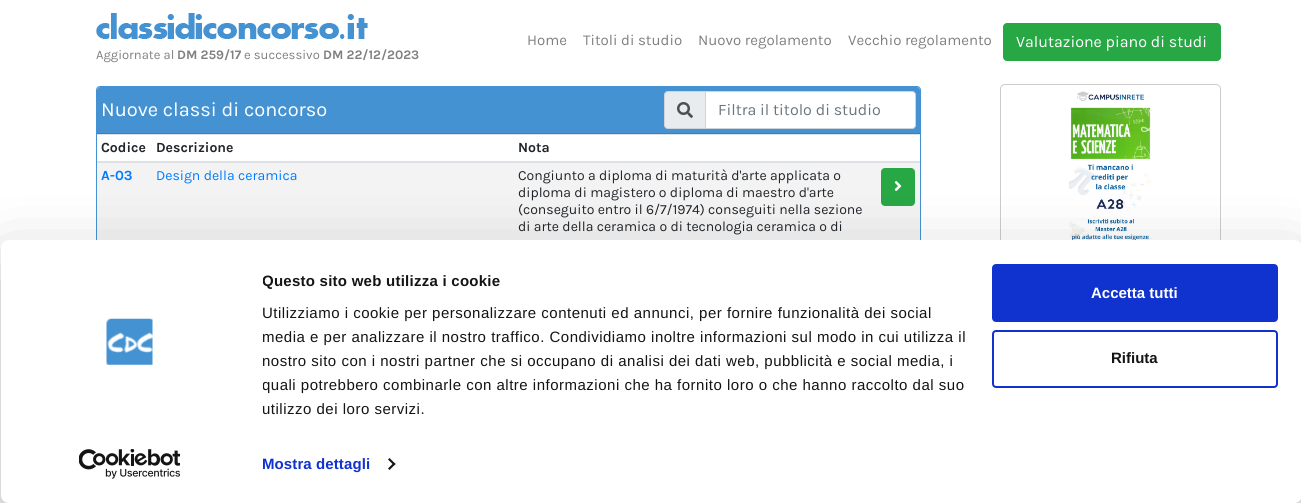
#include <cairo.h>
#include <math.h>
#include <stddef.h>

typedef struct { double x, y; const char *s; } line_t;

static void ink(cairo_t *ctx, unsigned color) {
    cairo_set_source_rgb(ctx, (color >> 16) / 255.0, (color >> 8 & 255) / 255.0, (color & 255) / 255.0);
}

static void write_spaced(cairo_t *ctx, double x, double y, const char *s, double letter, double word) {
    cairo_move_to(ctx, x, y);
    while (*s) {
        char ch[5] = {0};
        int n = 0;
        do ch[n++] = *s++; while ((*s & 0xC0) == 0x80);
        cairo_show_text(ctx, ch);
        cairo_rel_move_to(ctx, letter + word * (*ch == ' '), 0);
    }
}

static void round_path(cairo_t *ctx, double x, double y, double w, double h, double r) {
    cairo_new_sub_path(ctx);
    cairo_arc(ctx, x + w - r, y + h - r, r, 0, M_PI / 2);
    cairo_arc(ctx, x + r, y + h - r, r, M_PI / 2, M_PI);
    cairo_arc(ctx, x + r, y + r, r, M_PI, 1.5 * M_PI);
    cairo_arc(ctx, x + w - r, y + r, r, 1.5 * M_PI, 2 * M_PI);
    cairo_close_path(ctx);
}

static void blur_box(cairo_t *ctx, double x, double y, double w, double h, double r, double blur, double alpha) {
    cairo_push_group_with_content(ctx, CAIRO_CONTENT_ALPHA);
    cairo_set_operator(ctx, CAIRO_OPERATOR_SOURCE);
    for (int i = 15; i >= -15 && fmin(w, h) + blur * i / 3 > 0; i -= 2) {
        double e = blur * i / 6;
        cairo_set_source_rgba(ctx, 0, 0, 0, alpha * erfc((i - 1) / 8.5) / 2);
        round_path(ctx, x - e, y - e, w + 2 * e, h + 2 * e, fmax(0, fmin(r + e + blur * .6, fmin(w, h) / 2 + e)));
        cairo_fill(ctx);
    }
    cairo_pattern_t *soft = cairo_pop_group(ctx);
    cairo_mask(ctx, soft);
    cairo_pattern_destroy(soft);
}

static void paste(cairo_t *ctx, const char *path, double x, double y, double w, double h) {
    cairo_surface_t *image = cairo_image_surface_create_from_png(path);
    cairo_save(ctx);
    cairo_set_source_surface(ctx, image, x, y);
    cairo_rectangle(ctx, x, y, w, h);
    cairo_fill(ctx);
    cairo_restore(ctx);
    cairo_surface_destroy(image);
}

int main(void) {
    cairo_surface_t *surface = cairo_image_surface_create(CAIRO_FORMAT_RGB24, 1301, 503);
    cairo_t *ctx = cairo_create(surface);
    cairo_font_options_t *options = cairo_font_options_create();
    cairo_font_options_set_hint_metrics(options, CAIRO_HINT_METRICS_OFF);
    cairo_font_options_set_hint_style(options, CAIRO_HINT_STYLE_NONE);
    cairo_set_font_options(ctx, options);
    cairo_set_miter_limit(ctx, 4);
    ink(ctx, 0xFFFFFF);
    cairo_paint(ctx);
    cairo_select_font_face(ctx, "Karla", CAIRO_FONT_SLANT_NORMAL, CAIRO_FONT_WEIGHT_NORMAL);
    cairo_set_font_size(ctx, 15);
    ink(ctx, 0x808080);
    {
        static const line_t items[] = {
            {527, 45, "Home"},
            {583, 45, "Titoli di studio"},
            {698, 45, "Nuovo regolamento"},
            {848, 45, "Vecchio regolamento"},
        };
        for (size_t i = 0; i < sizeof items / sizeof *items; i++) {
            cairo_move_to(ctx, items[i].x, items[i].y);
            cairo_show_text(ctx, items[i].s);
        }
    }
    ink(ctx, 0x28A745);
    round_path(ctx, 1003.5, 23.5, 217, 37, 3.5);
    cairo_fill_preserve(ctx);
    cairo_set_line_width(ctx, 1);
    cairo_stroke(ctx);
    cairo_set_font_size(ctx, 16);
    ink(ctx, 0xFFFFFF);
    cairo_move_to(ctx, 1016, 47);
    cairo_show_text(ctx, "Valutazione piano di studi");
    paste(ctx, "media/1.png", 96, 13, 272, 26);
    cairo_set_font_size(ctx, 13);
    ink(ctx, 0x808080);
    cairo_move_to(ctx, 96, 59);
    cairo_show_text(ctx, "Aggiornate al");
    cairo_select_font_face(ctx, "Karla", CAIRO_FONT_SLANT_NORMAL, CAIRO_FONT_WEIGHT_BOLD);
    cairo_move_to(ctx, 177, 59);
    cairo_show_text(ctx, "DM 259/17");
    cairo_select_font_face(ctx, "Karla", CAIRO_FONT_SLANT_NORMAL, CAIRO_FONT_WEIGHT_NORMAL);
    cairo_move_to(ctx, 244, 59);
    cairo_show_text(ctx, "e successivo");
    cairo_select_font_face(ctx, "Karla", CAIRO_FONT_SLANT_NORMAL, CAIRO_FONT_WEIGHT_BOLD);
    cairo_move_to(ctx, 323, 59);
    cairo_show_text(ctx, "DM 22/12/2023");
    round_path(ctx, 96.5, 86.5, 824, 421, 3.5);
    ink(ctx, 0x4492D2);
    cairo_stroke(ctx);
    cairo_new_path(ctx);
    cairo_move_to(ctx, 100, 87);
    cairo_line_to(ctx, 917, 87);
    cairo_curve_to(ctx, 918.5, 87, 920, 88.5, 920, 90);
    cairo_line_to(ctx, 920, 134);
    cairo_line_to(ctx, 97, 134);
    cairo_line_to(ctx, 97, 90);
    cairo_curve_to(ctx, 97, 88.5, 98.5, 87, 100, 87);
    cairo_close_path(ctx);
    cairo_fill(ctx);
    ink(ctx, 0x3C80B8);
    cairo_rectangle(ctx, 97, 133, 823, 1);
    cairo_fill(ctx);
    cairo_select_font_face(ctx, "Karla", CAIRO_FONT_SLANT_NORMAL, CAIRO_FONT_WEIGHT_NORMAL);
    cairo_set_font_size(ctx, 20);
    ink(ctx, 0xFFFFFF);
    cairo_move_to(ctx, 101, 116);
    cairo_show_text(ctx, "Nuove classi di concorso");
    ink(ctx, 0xE9ECEF);
    cairo_new_path(ctx);
    cairo_move_to(ctx, 668, 91.5);
    cairo_line_to(ctx, 705.5, 91.5);
    cairo_line_to(ctx, 705.5, 128.5);
    cairo_line_to(ctx, 668, 128.5);
    cairo_curve_to(ctx, 666, 128.5, 664.5, 127, 664.5, 125);
    cairo_line_to(ctx, 664.5, 95);
    cairo_curve_to(ctx, 664.5, 93, 666, 91.5, 668, 91.5);
    cairo_close_path(ctx);
    cairo_fill_preserve(ctx);
    ink(ctx, 0xCED4DA);
    cairo_stroke(ctx);
    paste(ctx, "media/2.png", 677, 102, 16, 16);
    ink(ctx, 0xFFFFFF);
    cairo_new_path(ctx);
    cairo_move_to(ctx, 705.5, 91.5);
    cairo_line_to(ctx, 912, 91.5);
    cairo_curve_to(ctx, 914, 91.5, 915.5, 93, 915.5, 95);
    cairo_line_to(ctx, 915.5, 125);
    cairo_curve_to(ctx, 915.5, 127, 914, 128.5, 912, 128.5);
    cairo_line_to(ctx, 705.5, 128.5);
    cairo_close_path(ctx);
    cairo_fill_preserve(ctx);
    ink(ctx, 0xCED4DA);
    cairo_stroke(ctx);
    cairo_set_font_size(ctx, 16);
    ink(ctx, 0x6C757D);
    cairo_move_to(ctx, 718, 115);
    cairo_show_text(ctx, "Filtra il titolo di studio");
    ink(ctx, 0xDEE2E6);
    cairo_rectangle(ctx, 97, 134, 823, 1);
    cairo_fill(ctx);
    cairo_rectangle(ctx, 97, 161, 823, 2);
    cairo_fill(ctx);
    cairo_select_font_face(ctx, "Karla", CAIRO_FONT_SLANT_NORMAL, CAIRO_FONT_WEIGHT_BOLD);
    cairo_set_font_size(ctx, 14);
    ink(ctx, 0x212529);
    {
        static const line_t items[] = {
            {101, 152, "Codice"},
            {156, 152, "Descrizione"},
            {518, 152, "Nota"},
        };
        for (size_t i = 0; i < sizeof items / sizeof *items; i++) {
            cairo_move_to(ctx, items[i].x, items[i].y);
            cairo_show_text(ctx, items[i].s);
        }
    }
    ink(ctx, 0xF3F3F3);
    cairo_rectangle(ctx, 97, 163, 823, 77);
    cairo_fill(ctx);
    ink(ctx, 0x007BFF);
    cairo_move_to(ctx, 101, 180);
    cairo_show_text(ctx, "A-03");
    cairo_select_font_face(ctx, "Karla", CAIRO_FONT_SLANT_NORMAL, CAIRO_FONT_WEIGHT_NORMAL);
    cairo_move_to(ctx, 156, 180);
    cairo_show_text(ctx, "Design della ceramica");
    ink(ctx, 0x212529);
    {
        static const line_t items[] = {
            {518, 180, "Congiunto a diploma di maturità d'arte applicata o"},
            {518, 197, "diploma di magistero o diploma di maestro d'arte"},
            {518, 214, "(conseguito entro il 6/7/1974) conseguiti nella sezione"},
            {518, 231, "di arte della ceramica o di tecnologia ceramica o di"},
        };
        for (size_t i = 0; i < sizeof items / sizeof *items; i++) {
            cairo_move_to(ctx, items[i].x, items[i].y);
            cairo_show_text(ctx, items[i].s);
        }
    }
    ink(ctx, 0x28A745);
    round_path(ctx, 881.5, 168.5, 33, 37, 3.5);
    cairo_fill_preserve(ctx);
    cairo_stroke(ctx);
    paste(ctx, "media/3.png", 894, 181, 8, 10);
    paste(ctx, "media/4.png", 1069, 91, 83, 149);
    round_path(ctx, 1000.5, 84.5, 220, 252, 4.5);
    ink(ctx, 0xCDCBCB);
    cairo_stroke(ctx);
    ink(ctx, 0x000000);
    blur_box(ctx, 1, 270, 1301, 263, 8, 35, 0.3);
    ink(ctx, 0xFFFFFF);
    round_path(ctx, 1, 240, 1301, 263, 8);
    cairo_fill(ctx);
    paste(ctx, "media/5.png", 106, 318, 47, 47);
    paste(ctx, "media/6.png", 79, 449, 101, 30);
    cairo_save(ctx);
    cairo_rectangle(ctx, 263, 270, 723, 151);
    cairo_clip(ctx);
    cairo_select_font_face(ctx, "Liberation Sans", CAIRO_FONT_SLANT_NORMAL, CAIRO_FONT_WEIGHT_BOLD);
    cairo_set_font_size(ctx, 15);
    ink(ctx, 0x141414);
    write_spaced(ctx, 262, 286, "Questo sito web utilizza i cookie", 0.25, 0);
    cairo_restore(ctx);
    cairo_select_font_face(ctx, "Liberation Sans", CAIRO_FONT_SLANT_NORMAL, CAIRO_FONT_WEIGHT_NORMAL);
    cairo_set_font_size(ctx, 15);
    ink(ctx, 0x141414);
    {
        static const line_t items[] = {
            {262, 318, "Utilizziamo i cookie per personalizzare contenuti ed annunci, per fornire funzionalità dei social"},
            {262, 342, "media e per analizzare il nostro traffico. Condividiamo inoltre informazioni sul modo in cui utilizza il"},
            {262, 366, "nostro sito con i nostri partner che si occupano di analisi dei dati web, pubblicità e social media, i"},
        };
        for (size_t i = 0; i < sizeof items / sizeof *items; i++) {
            write_spaced(ctx, items[i].x, items[i].y, items[i].s, 0.5, 0);
        }
    }
    cairo_save(ctx);
    cairo_rectangle(ctx, 263, 270, 723, 151);
    cairo_clip(ctx);
    write_spaced(ctx, 262, 390, "quali potrebbero combinarle con altre informazioni che ha fornito loro o che hanno raccolto dal suo", 0.5, 0);
    cairo_restore(ctx);
    write_spaced(ctx, 262, 414, "utilizzo dei loro servizi.", 0.5, 0);
    cairo_select_font_face(ctx, "Liberation Sans", CAIRO_FONT_SLANT_NORMAL, CAIRO_FONT_WEIGHT_BOLD);
    ink(ctx, 0x1032CF);
    write_spaced(ctx, 262, 469, "Mostra dettagli", 0.1, 0);
    ink(ctx, 0x141414);
    cairo_new_path(ctx);
    cairo_move_to(ctx, 389.5, 458);
    cairo_line_to(ctx, 395.5, 464);
    cairo_line_to(ctx, 394, 465.5);
    cairo_line_to(ctx, 388, 459.5);
    cairo_close_path(ctx);
    cairo_fill(ctx);
    cairo_new_path(ctx);
    cairo_move_to(ctx, 394, 462.5);
    cairo_line_to(ctx, 395.5, 464);
    cairo_line_to(ctx, 389.5, 470);
    cairo_line_to(ctx, 388, 468.5);
    cairo_close_path(ctx);
    cairo_fill(ctx);
    ink(ctx, 0x1032CF);
    round_path(ctx, 993, 265, 284, 56, 3);
    cairo_fill_preserve(ctx);
    cairo_set_line_width(ctx, 2);
    cairo_stroke(ctx);
    ink(ctx, 0xFFFFFF);
    cairo_move_to(ctx, 1091, 298);
    cairo_show_text(ctx, "Accetta tutti");
    round_path(ctx, 993, 331, 284, 56, 3);
    ink(ctx, 0x1032CF);
    cairo_stroke(ctx);
    ink(ctx, 0x141414);
    cairo_move_to(ctx, 1111, 363);
    cairo_show_text(ctx, "Rifiuta");
    cairo_surface_write_to_png(surface, "image.png");
    cairo_font_options_destroy(options);
    cairo_destroy(ctx);
    cairo_surface_destroy(surface);
    return 0;
}
